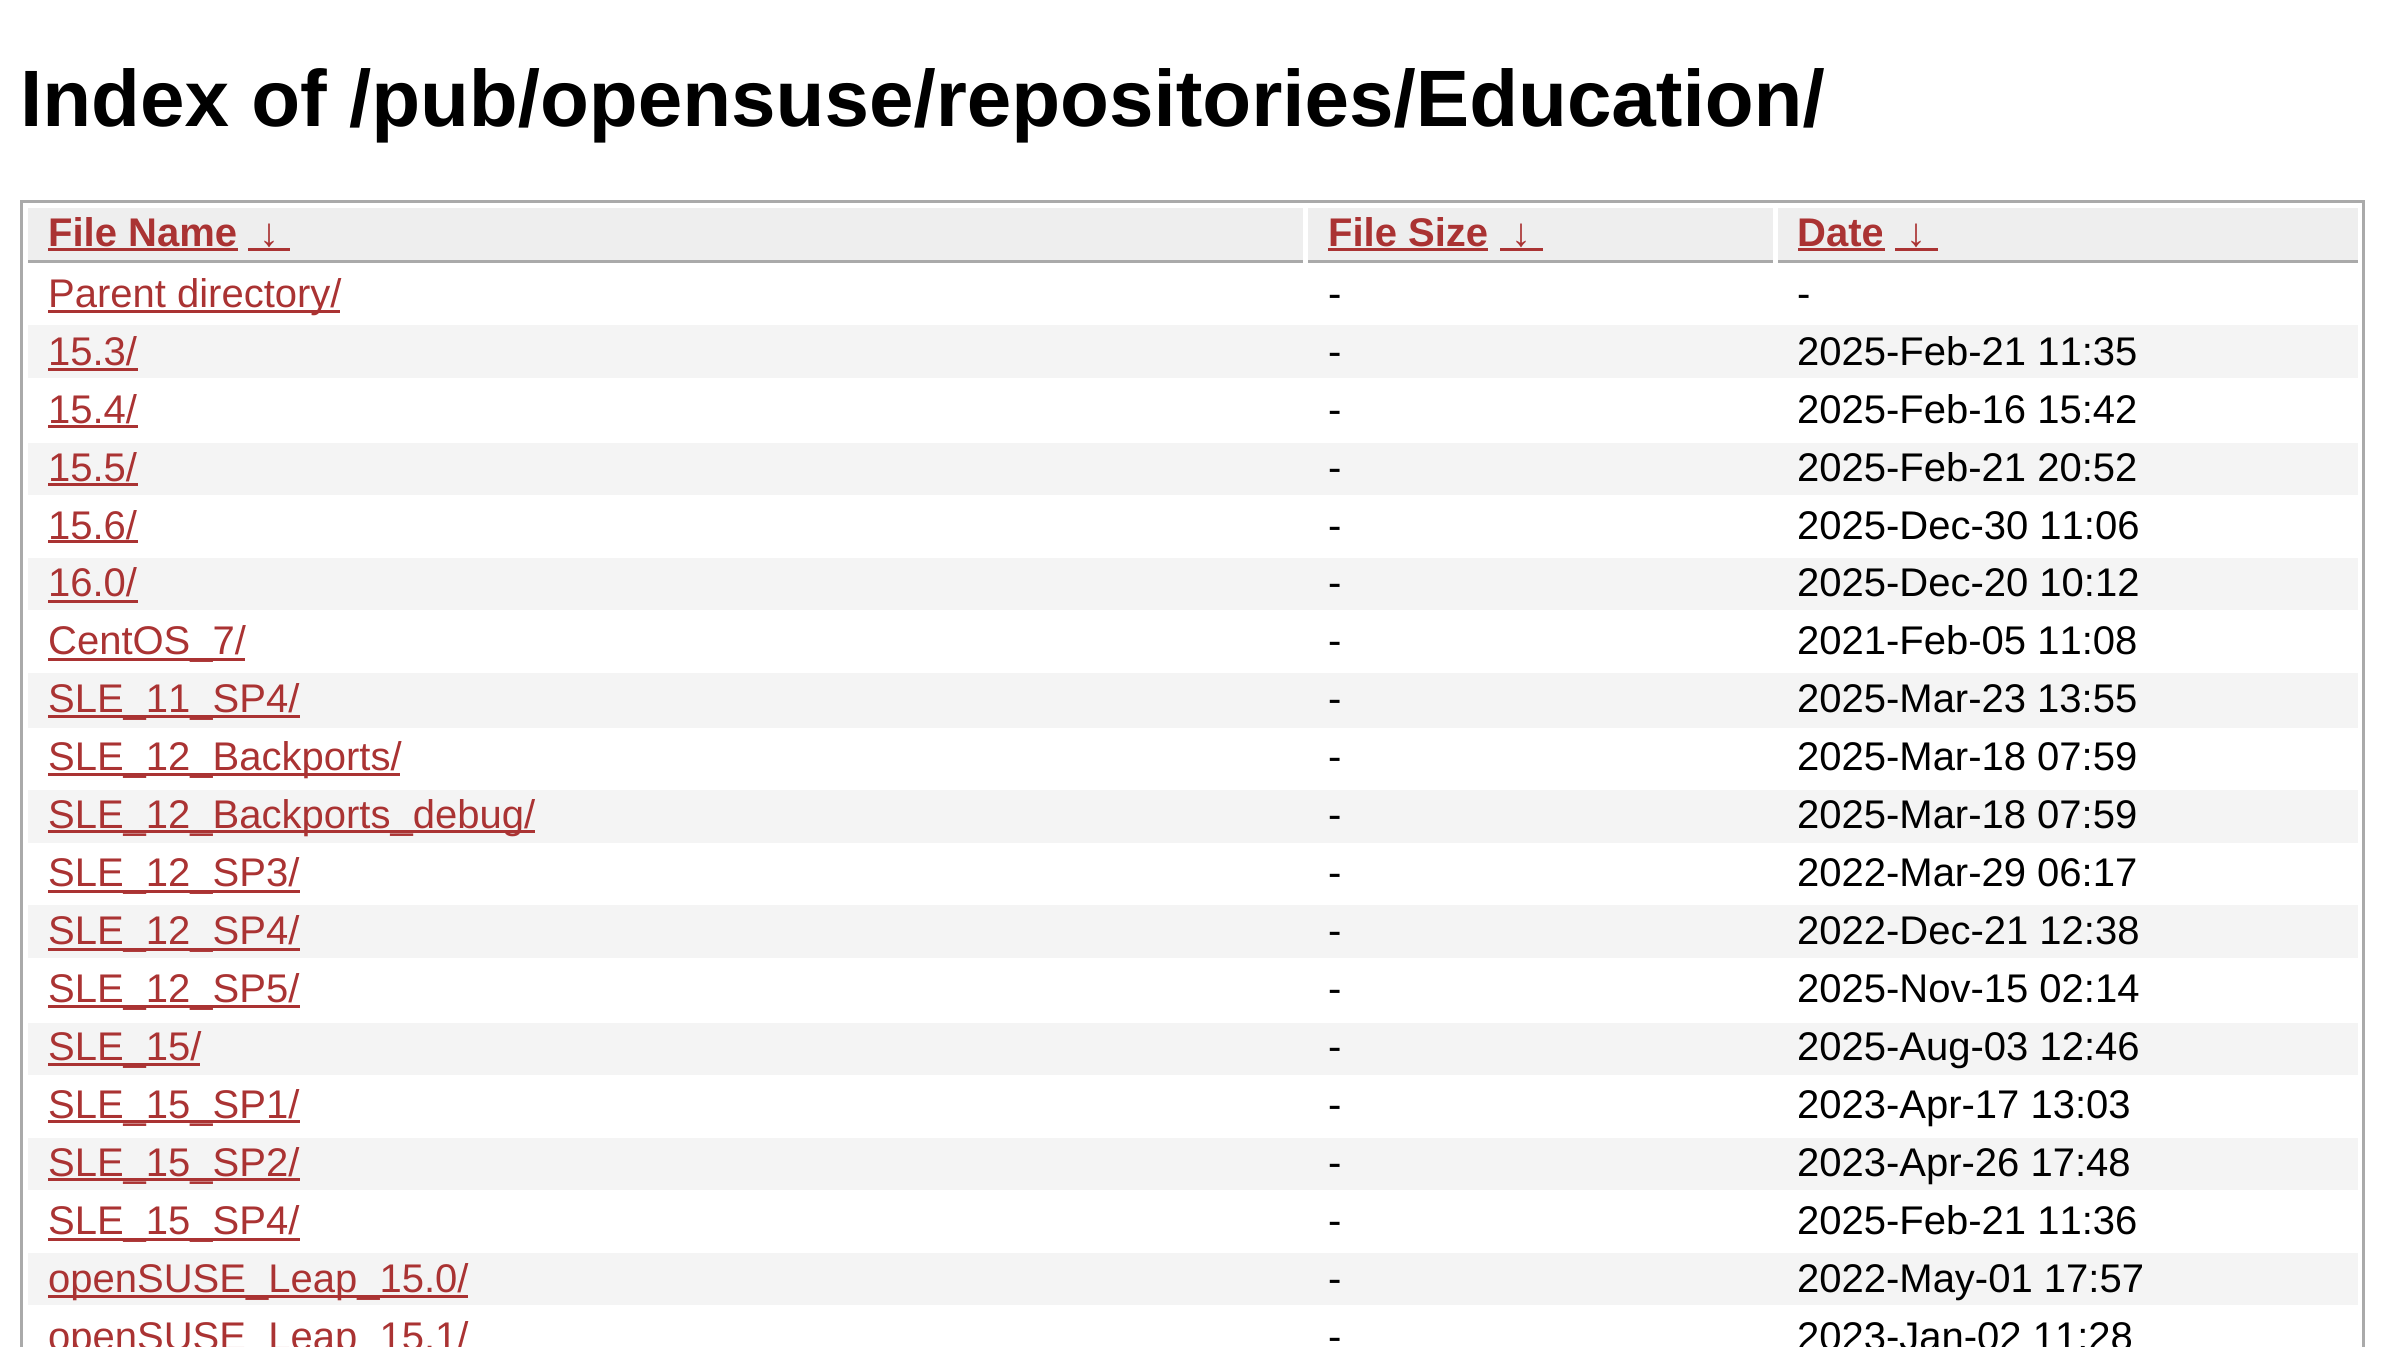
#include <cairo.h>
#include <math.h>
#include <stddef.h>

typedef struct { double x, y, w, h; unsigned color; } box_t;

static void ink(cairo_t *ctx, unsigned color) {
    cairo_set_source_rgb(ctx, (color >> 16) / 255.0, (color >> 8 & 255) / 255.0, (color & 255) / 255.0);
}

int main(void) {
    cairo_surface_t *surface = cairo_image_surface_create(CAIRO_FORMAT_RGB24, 2385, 1347);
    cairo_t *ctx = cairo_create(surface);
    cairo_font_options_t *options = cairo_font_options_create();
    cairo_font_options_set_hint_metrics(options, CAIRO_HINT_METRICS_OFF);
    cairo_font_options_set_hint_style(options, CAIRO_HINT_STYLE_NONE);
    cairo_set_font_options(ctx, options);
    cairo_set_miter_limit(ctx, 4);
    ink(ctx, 0xFFFFFF);
    cairo_paint(ctx);
    cairo_select_font_face(ctx, "Liberation Sans", CAIRO_FONT_SLANT_NORMAL, CAIRO_FONT_WEIGHT_BOLD);
    cairo_set_font_size(ctx, 80);
    ink(ctx, 0x000000);
    cairo_move_to(ctx, 20, 126);
    cairo_show_text(ctx, "Index of /pub/opensuse/repositories/Education/");
    cairo_rectangle(ctx, 21.5, 201.5, 2342, 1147);
    ink(ctx, 0xAAAAAA);
    cairo_set_line_width(ctx, 3);
    cairo_stroke(ctx);
    ink(ctx, 0xEEEEEE);
    cairo_rectangle(ctx, 28, 208, 1275, 52);
    cairo_fill(ctx);
    ink(ctx, 0xAAAAAA);
    cairo_rectangle(ctx, 28, 260, 1275, 3);
    cairo_fill(ctx);
    cairo_set_font_size(ctx, 40);
    ink(ctx, 0xAA3333);
    cairo_move_to(ctx, 48, 246);
    cairo_show_text(ctx, "File Name");
    cairo_rectangle(ctx, 48, 248, 190, 3);
    cairo_fill(ctx);
    cairo_move_to(ctx, 259, 246);
    cairo_show_text(ctx, "↓");
    {
        static const box_t items[] = {
            {248, 248, 42, 3, 0xAA3333},
            {1308, 208, 465, 52, 0xEEEEEE},
            {1308, 260, 465, 3, 0xAAAAAA},
        };
        for (size_t i = 0; i < sizeof items / sizeof *items; i++) {
            ink(ctx, items[i].color);
            cairo_rectangle(ctx, items[i].x, items[i].y, items[i].w, items[i].h);
            cairo_fill(ctx);
        }
    }
    ink(ctx, 0xAA3333);
    cairo_move_to(ctx, 1328, 246);
    cairo_show_text(ctx, "File Size");
    cairo_rectangle(ctx, 1328, 248, 160, 3);
    cairo_fill(ctx);
    cairo_move_to(ctx, 1511, 246);
    cairo_show_text(ctx, "↓");
    {
        static const box_t items[] = {
            {1500, 248, 43, 3, 0xAA3333},
            {1778, 208, 580, 52, 0xEEEEEE},
            {1778, 260, 580, 3, 0xAAAAAA},
        };
        for (size_t i = 0; i < sizeof items / sizeof *items; i++) {
            ink(ctx, items[i].color);
            cairo_rectangle(ctx, items[i].x, items[i].y, items[i].w, items[i].h);
            cairo_fill(ctx);
        }
    }
    ink(ctx, 0xAA3333);
    cairo_move_to(ctx, 1797, 246);
    cairo_show_text(ctx, "Date");
    cairo_rectangle(ctx, 1798, 248, 87, 3);
    cairo_fill(ctx);
    cairo_move_to(ctx, 1906, 246);
    cairo_show_text(ctx, "↓");
    cairo_rectangle(ctx, 1895, 248, 43, 3);
    cairo_fill(ctx);
    cairo_rectangle(ctx, 48, 310, 292, 3);
    cairo_fill(ctx);
    cairo_select_font_face(ctx, "Liberation Sans", CAIRO_FONT_SLANT_NORMAL, CAIRO_FONT_WEIGHT_NORMAL);
    cairo_move_to(ctx, 48, 307);
    cairo_show_text(ctx, "Parent directory/");
    ink(ctx, 0x000000);
    cairo_move_to(ctx, 1328, 307);
    cairo_show_text(ctx, "-");
    cairo_move_to(ctx, 1797, 307);
    cairo_show_text(ctx, "-");
    ink(ctx, 0xF4F4F4);
    cairo_rectangle(ctx, 28, 325, 2330, 53);
    cairo_fill(ctx);
    ink(ctx, 0xAA3333);
    cairo_move_to(ctx, 48, 365);
    cairo_show_text(ctx, "15.3/");
    cairo_rectangle(ctx, 48, 368, 90, 3);
    cairo_fill(ctx);
    ink(ctx, 0x000000);
    cairo_move_to(ctx, 1328, 365);
    cairo_show_text(ctx, "-");
    cairo_move_to(ctx, 1797, 365);
    cairo_show_text(ctx, "2025-Feb-21 11:35");
    ink(ctx, 0xAA3333);
    cairo_move_to(ctx, 48, 423);
    cairo_show_text(ctx, "15.4/");
    cairo_rectangle(ctx, 48, 425, 90, 3);
    cairo_fill(ctx);
    ink(ctx, 0x000000);
    cairo_move_to(ctx, 1328, 423);
    cairo_show_text(ctx, "-");
    cairo_move_to(ctx, 1797, 423);
    cairo_show_text(ctx, "2025-Feb-16 15:42");
    ink(ctx, 0xF4F4F4);
    cairo_rectangle(ctx, 28, 443, 2330, 52);
    cairo_fill(ctx);
    ink(ctx, 0xAA3333);
    cairo_move_to(ctx, 48, 481);
    cairo_show_text(ctx, "15.5/");
    cairo_rectangle(ctx, 48, 483, 90, 3);
    cairo_fill(ctx);
    ink(ctx, 0x000000);
    cairo_move_to(ctx, 1328, 481);
    cairo_show_text(ctx, "-");
    cairo_move_to(ctx, 1797, 481);
    cairo_show_text(ctx, "2025-Feb-21 20:52");
    ink(ctx, 0xAA3333);
    cairo_move_to(ctx, 48, 539);
    cairo_show_text(ctx, "15.6/");
    cairo_rectangle(ctx, 48, 540, 90, 3);
    cairo_fill(ctx);
    ink(ctx, 0x000000);
    cairo_move_to(ctx, 1328, 539);
    cairo_show_text(ctx, "-");
    cairo_move_to(ctx, 1797, 539);
    cairo_show_text(ctx, "2025-Dec-30 11:06");
    ink(ctx, 0xF4F4F4);
    cairo_rectangle(ctx, 28, 558, 2330, 52);
    cairo_fill(ctx);
    ink(ctx, 0xAA3333);
    cairo_move_to(ctx, 48, 596);
    cairo_show_text(ctx, "16.0/");
    cairo_rectangle(ctx, 48, 600, 90, 3);
    cairo_fill(ctx);
    ink(ctx, 0x000000);
    cairo_move_to(ctx, 1328, 596);
    cairo_show_text(ctx, "-");
    cairo_move_to(ctx, 1797, 596);
    cairo_show_text(ctx, "2025-Dec-20 10:12");
    ink(ctx, 0xAA3333);
    cairo_rectangle(ctx, 48, 658, 197, 3);
    cairo_fill(ctx);
    cairo_move_to(ctx, 48, 654);
    cairo_show_text(ctx, "CentOS_7/");
    ink(ctx, 0x000000);
    cairo_move_to(ctx, 1328, 654);
    cairo_show_text(ctx, "-");
    cairo_move_to(ctx, 1797, 654);
    cairo_show_text(ctx, "2021-Feb-05 11:08");
    ink(ctx, 0xF4F4F4);
    cairo_rectangle(ctx, 28, 673, 2330, 55);
    cairo_fill(ctx);
    ink(ctx, 0xAA3333);
    cairo_rectangle(ctx, 48, 715, 252, 3);
    cairo_fill(ctx);
    cairo_move_to(ctx, 48, 712);
    cairo_show_text(ctx, "SLE_11_SP4/");
    ink(ctx, 0x000000);
    cairo_move_to(ctx, 1328, 712);
    cairo_show_text(ctx, "-");
    cairo_move_to(ctx, 1797, 712);
    cairo_show_text(ctx, "2025-Mar-23 13:55");
    ink(ctx, 0xAA3333);
    cairo_rectangle(ctx, 48, 773, 352, 3);
    cairo_fill(ctx);
    cairo_move_to(ctx, 48, 770);
    cairo_show_text(ctx, "SLE_12_Backports/");
    ink(ctx, 0x000000);
    cairo_move_to(ctx, 1328, 770);
    cairo_show_text(ctx, "-");
    cairo_move_to(ctx, 1797, 770);
    cairo_show_text(ctx, "2025-Mar-18 07:59");
    ink(ctx, 0xF4F4F4);
    cairo_rectangle(ctx, 28, 790, 2330, 53);
    cairo_fill(ctx);
    ink(ctx, 0xAA3333);
    cairo_rectangle(ctx, 48, 830, 487, 3);
    cairo_fill(ctx);
    cairo_move_to(ctx, 48, 828);
    cairo_show_text(ctx, "SLE_12_Backports_debug/");
    ink(ctx, 0x000000);
    cairo_move_to(ctx, 1328, 828);
    cairo_show_text(ctx, "-");
    cairo_move_to(ctx, 1797, 828);
    cairo_show_text(ctx, "2025-Mar-18 07:59");
    ink(ctx, 0xAA3333);
    cairo_rectangle(ctx, 48, 890, 252, 3);
    cairo_fill(ctx);
    cairo_move_to(ctx, 48, 886);
    cairo_show_text(ctx, "SLE_12_SP3/");
    ink(ctx, 0x000000);
    cairo_move_to(ctx, 1328, 886);
    cairo_show_text(ctx, "-");
    cairo_move_to(ctx, 1797, 886);
    cairo_show_text(ctx, "2022-Mar-29 06:17");
    ink(ctx, 0xF4F4F4);
    cairo_rectangle(ctx, 28, 905, 2330, 53);
    cairo_fill(ctx);
    ink(ctx, 0xAA3333);
    cairo_rectangle(ctx, 48, 948, 252, 3);
    cairo_fill(ctx);
    cairo_move_to(ctx, 48, 944);
    cairo_show_text(ctx, "SLE_12_SP4/");
    ink(ctx, 0x000000);
    cairo_move_to(ctx, 1328, 944);
    cairo_show_text(ctx, "-");
    cairo_move_to(ctx, 1797, 944);
    cairo_show_text(ctx, "2022-Dec-21 12:38");
    ink(ctx, 0xAA3333);
    cairo_rectangle(ctx, 48, 1005, 252, 3);
    cairo_fill(ctx);
    cairo_move_to(ctx, 48, 1002);
    cairo_show_text(ctx, "SLE_12_SP5/");
    ink(ctx, 0x000000);
    cairo_move_to(ctx, 1328, 1002);
    cairo_show_text(ctx, "-");
    cairo_move_to(ctx, 1797, 1002);
    cairo_show_text(ctx, "2025-Nov-15 02:14");
    ink(ctx, 0xF4F4F4);
    cairo_rectangle(ctx, 28, 1023, 2330, 52);
    cairo_fill(ctx);
    ink(ctx, 0xAA3333);
    cairo_rectangle(ctx, 48, 1063, 152, 3);
    cairo_fill(ctx);
    cairo_move_to(ctx, 48, 1060);
    cairo_show_text(ctx, "SLE_15/");
    ink(ctx, 0x000000);
    cairo_move_to(ctx, 1328, 1060);
    cairo_show_text(ctx, "-");
    cairo_move_to(ctx, 1797, 1060);
    cairo_show_text(ctx, "2025-Aug-03 12:46");
    ink(ctx, 0xAA3333);
    cairo_rectangle(ctx, 48, 1120, 252, 3);
    cairo_fill(ctx);
    cairo_move_to(ctx, 48, 1118);
    cairo_show_text(ctx, "SLE_15_SP1/");
    ink(ctx, 0x000000);
    cairo_move_to(ctx, 1328, 1118);
    cairo_show_text(ctx, "-");
    cairo_move_to(ctx, 1797, 1118);
    cairo_show_text(ctx, "2023-Apr-17 13:03");
    ink(ctx, 0xF4F4F4);
    cairo_rectangle(ctx, 28, 1138, 2330, 52);
    cairo_fill(ctx);
    ink(ctx, 0xAA3333);
    cairo_rectangle(ctx, 48, 1178, 252, 3);
    cairo_fill(ctx);
    cairo_move_to(ctx, 48, 1176);
    cairo_show_text(ctx, "SLE_15_SP2/");
    ink(ctx, 0x000000);
    cairo_move_to(ctx, 1328, 1176);
    cairo_show_text(ctx, "-");
    cairo_move_to(ctx, 1797, 1176);
    cairo_show_text(ctx, "2023-Apr-26 17:48");
    ink(ctx, 0xAA3333);
    cairo_rectangle(ctx, 48, 1238, 252, 3);
    cairo_fill(ctx);
    cairo_move_to(ctx, 48, 1234);
    cairo_show_text(ctx, "SLE_15_SP4/");
    ink(ctx, 0x000000);
    cairo_move_to(ctx, 1328, 1234);
    cairo_show_text(ctx, "-");
    cairo_move_to(ctx, 1797, 1234);
    cairo_show_text(ctx, "2025-Feb-21 11:36");
    ink(ctx, 0xF4F4F4);
    cairo_rectangle(ctx, 28, 1253, 2330, 52);
    cairo_fill(ctx);
    ink(ctx, 0xAA3333);
    cairo_rectangle(ctx, 48, 1295, 420, 3);
    cairo_fill(ctx);
    cairo_move_to(ctx, 48, 1292);
    cairo_show_text(ctx, "openSUSE_Leap_15.0/");
    ink(ctx, 0x000000);
    cairo_move_to(ctx, 1328, 1292);
    cairo_show_text(ctx, "-");
    cairo_move_to(ctx, 1797, 1292);
    cairo_show_text(ctx, "2022-May-01 17:57");
    ink(ctx, 0xAA3333);
    cairo_move_to(ctx, 48, 1350);
    cairo_show_text(ctx, "openSUSE_Leap_15.1/");
    ink(ctx, 0x000000);
    cairo_move_to(ctx, 1328, 1350);
    cairo_show_text(ctx, "-");
    cairo_move_to(ctx, 1797, 1350);
    cairo_show_text(ctx, "2023-Jan-02 11:28");
    cairo_surface_write_to_png(surface, "image.png");
    cairo_font_options_destroy(options);
    cairo_destroy(ctx);
    cairo_surface_destroy(surface);
    return 0;
}
